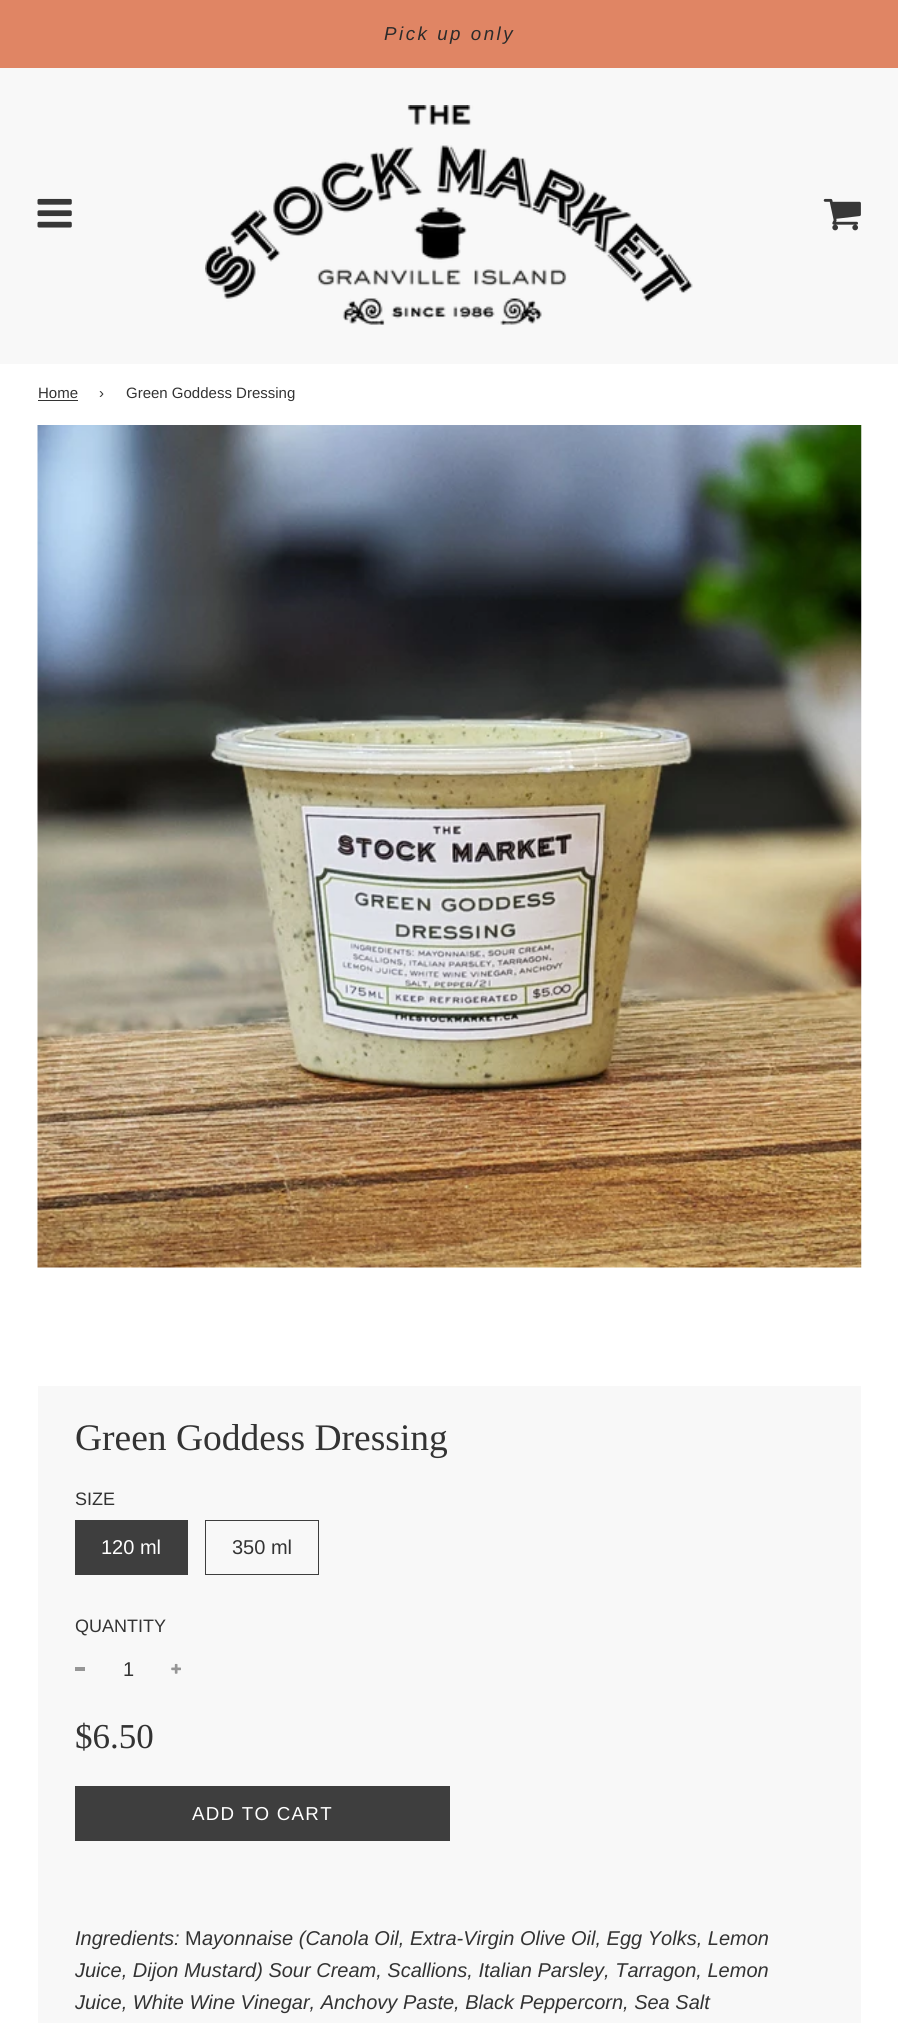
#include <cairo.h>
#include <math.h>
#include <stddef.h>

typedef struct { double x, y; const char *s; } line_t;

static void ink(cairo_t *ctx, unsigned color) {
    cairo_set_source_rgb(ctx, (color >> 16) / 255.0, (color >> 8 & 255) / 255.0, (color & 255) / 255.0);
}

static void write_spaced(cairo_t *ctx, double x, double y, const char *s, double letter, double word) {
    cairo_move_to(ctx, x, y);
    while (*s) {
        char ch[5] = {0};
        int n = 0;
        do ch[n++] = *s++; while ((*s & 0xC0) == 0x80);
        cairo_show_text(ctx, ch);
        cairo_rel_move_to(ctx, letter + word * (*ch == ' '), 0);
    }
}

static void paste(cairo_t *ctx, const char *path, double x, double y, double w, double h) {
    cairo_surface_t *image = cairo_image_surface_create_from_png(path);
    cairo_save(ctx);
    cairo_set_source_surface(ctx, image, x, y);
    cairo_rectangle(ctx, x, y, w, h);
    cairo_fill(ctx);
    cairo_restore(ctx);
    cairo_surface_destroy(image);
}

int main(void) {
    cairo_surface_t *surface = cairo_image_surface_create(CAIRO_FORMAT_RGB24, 898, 2023);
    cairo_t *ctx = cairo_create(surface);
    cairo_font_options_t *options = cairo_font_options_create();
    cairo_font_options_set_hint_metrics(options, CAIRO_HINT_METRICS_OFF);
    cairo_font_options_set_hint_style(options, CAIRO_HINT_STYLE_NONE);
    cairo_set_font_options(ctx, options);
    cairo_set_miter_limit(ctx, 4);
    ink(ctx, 0xFFFFFF);
    cairo_paint(ctx);
    ink(ctx, 0xE08564);
    cairo_rectangle(ctx, 0, 0, 898, 68);
    cairo_fill(ctx);
    cairo_select_font_face(ctx, "Liberation Sans", CAIRO_FONT_SLANT_ITALIC, CAIRO_FONT_WEIGHT_NORMAL);
    cairo_set_font_size(ctx, 18.75);
    ink(ctx, 0x2B2B2B);
    write_spaced(ctx, 384, 40, "Pick up only", 2.5, 0);
    ink(ctx, 0xF8F8F8);
    cairo_rectangle(ctx, 0, 68, 898, 296);
    cairo_fill(ctx);
    paste(ctx, "media/1.png", 37, 198, 35, 30);
    paste(ctx, "media/2.png", 205, 105, 488, 220);
    paste(ctx, "media/3.png", 823, 198, 38, 33);
    cairo_select_font_face(ctx, "Liberation Sans", CAIRO_FONT_SLANT_NORMAL, CAIRO_FONT_WEIGHT_NORMAL);
    cairo_set_font_size(ctx, 15);
    ink(ctx, 0x333333);
    cairo_move_to(ctx, 38, 398);
    cairo_show_text(ctx, "Home");
    cairo_rectangle(ctx, 38, 400, 40, 1);
    cairo_fill(ctx);
    cairo_move_to(ctx, 99, 398);
    cairo_show_text(ctx, "›");
    cairo_move_to(ctx, 126, 398);
    cairo_show_text(ctx, "Green Goddess Dressing");
    paste(ctx, "media/4.png", 37, 425, 825, 843);
    ink(ctx, 0xF8F8F8);
    cairo_rectangle(ctx, 38, 1386, 823, 637);
    cairo_fill(ctx);
    cairo_select_font_face(ctx, "Liberation Serif", CAIRO_FONT_SLANT_NORMAL, CAIRO_FONT_WEIGHT_NORMAL);
    cairo_set_font_size(ctx, 37.5);
    ink(ctx, 0x333333);
    cairo_move_to(ctx, 75, 1450);
    cairo_show_text(ctx, "Green Goddess Dressing");
    cairo_select_font_face(ctx, "Liberation Sans", CAIRO_FONT_SLANT_NORMAL, CAIRO_FONT_WEIGHT_NORMAL);
    cairo_set_font_size(ctx, 18);
    cairo_move_to(ctx, 75, 1505);
    cairo_show_text(ctx, "SIZE");
    ink(ctx, 0x3E3E3E);
    cairo_rectangle(ctx, 75, 1520, 113, 55);
    cairo_fill(ctx);
    cairo_set_font_size(ctx, 20);
    ink(ctx, 0xFFFFFF);
    cairo_move_to(ctx, 101, 1554);
    cairo_show_text(ctx, "120 ml");
    cairo_rectangle(ctx, 205.5, 1520.5, 113, 54);
    ink(ctx, 0x3E3E3E);
    cairo_set_line_width(ctx, 1);
    cairo_stroke(ctx);
    ink(ctx, 0x333333);
    cairo_move_to(ctx, 232, 1554);
    cairo_show_text(ctx, "350 ml");
    cairo_set_font_size(ctx, 18);
    cairo_move_to(ctx, 75, 1632);
    cairo_show_text(ctx, "QUANTITY");
    ink(ctx, 0x969696);
    cairo_rectangle(ctx, 75, 1667, 10, 4);
    cairo_fill(ctx);
    cairo_set_font_size(ctx, 20);
    ink(ctx, 0x333333);
    cairo_move_to(ctx, 123, 1676);
    cairo_show_text(ctx, "1");
    paste(ctx, "media/5.png", 171, 1663, 10, 11);
    cairo_select_font_face(ctx, "Liberation Serif", CAIRO_FONT_SLANT_NORMAL, CAIRO_FONT_WEIGHT_NORMAL);
    cairo_set_font_size(ctx, 35);
    cairo_move_to(ctx, 75, 1748);
    cairo_show_text(ctx, "$6.50");
    ink(ctx, 0x3E3E3E);
    cairo_rectangle(ctx, 75, 1786, 375, 55);
    cairo_fill(ctx);
    cairo_select_font_face(ctx, "Liberation Sans", CAIRO_FONT_SLANT_NORMAL, CAIRO_FONT_WEIGHT_NORMAL);
    cairo_set_font_size(ctx, 18.75);
    ink(ctx, 0xFFFFFF);
    write_spaced(ctx, 192, 1820, "ADD TO CART", 1.25, 0);
    cairo_select_font_face(ctx, "Liberation Sans", CAIRO_FONT_SLANT_ITALIC, CAIRO_FONT_WEIGHT_NORMAL);
    cairo_set_font_size(ctx, 20);
    ink(ctx, 0x333333);
    cairo_move_to(ctx, 75, 1945);
    cairo_show_text(ctx, "Ingredients:");
    cairo_select_font_face(ctx, "Liberation Sans", CAIRO_FONT_SLANT_NORMAL, CAIRO_FONT_WEIGHT_NORMAL);
    cairo_move_to(ctx, 185, 1945);
    cairo_show_text(ctx, "M");
    cairo_select_font_face(ctx, "Liberation Sans", CAIRO_FONT_SLANT_ITALIC, CAIRO_FONT_WEIGHT_NORMAL);
    {
        static const line_t items[] = {
            {202, 1945, "ayonnaise (Canola Oil, Extra-Virgin Olive Oil, Egg Yolks, Lemon"},
            {75, 1977, "Juice, Dijon Mustard) Sour Cream, Scallions, Italian Parsley, Tarragon, Lemon"},
            {75, 2009, "Juice, White Wine Vinegar, Anchovy Paste, Black Peppercorn, Sea Salt"},
        };
        for (size_t i = 0; i < sizeof items / sizeof *items; i++) {
            cairo_move_to(ctx, items[i].x, items[i].y);
            cairo_show_text(ctx, items[i].s);
        }
    }
    cairo_surface_write_to_png(surface, "image.png");
    cairo_font_options_destroy(options);
    cairo_destroy(ctx);
    cairo_surface_destroy(surface);
    return 0;
}
